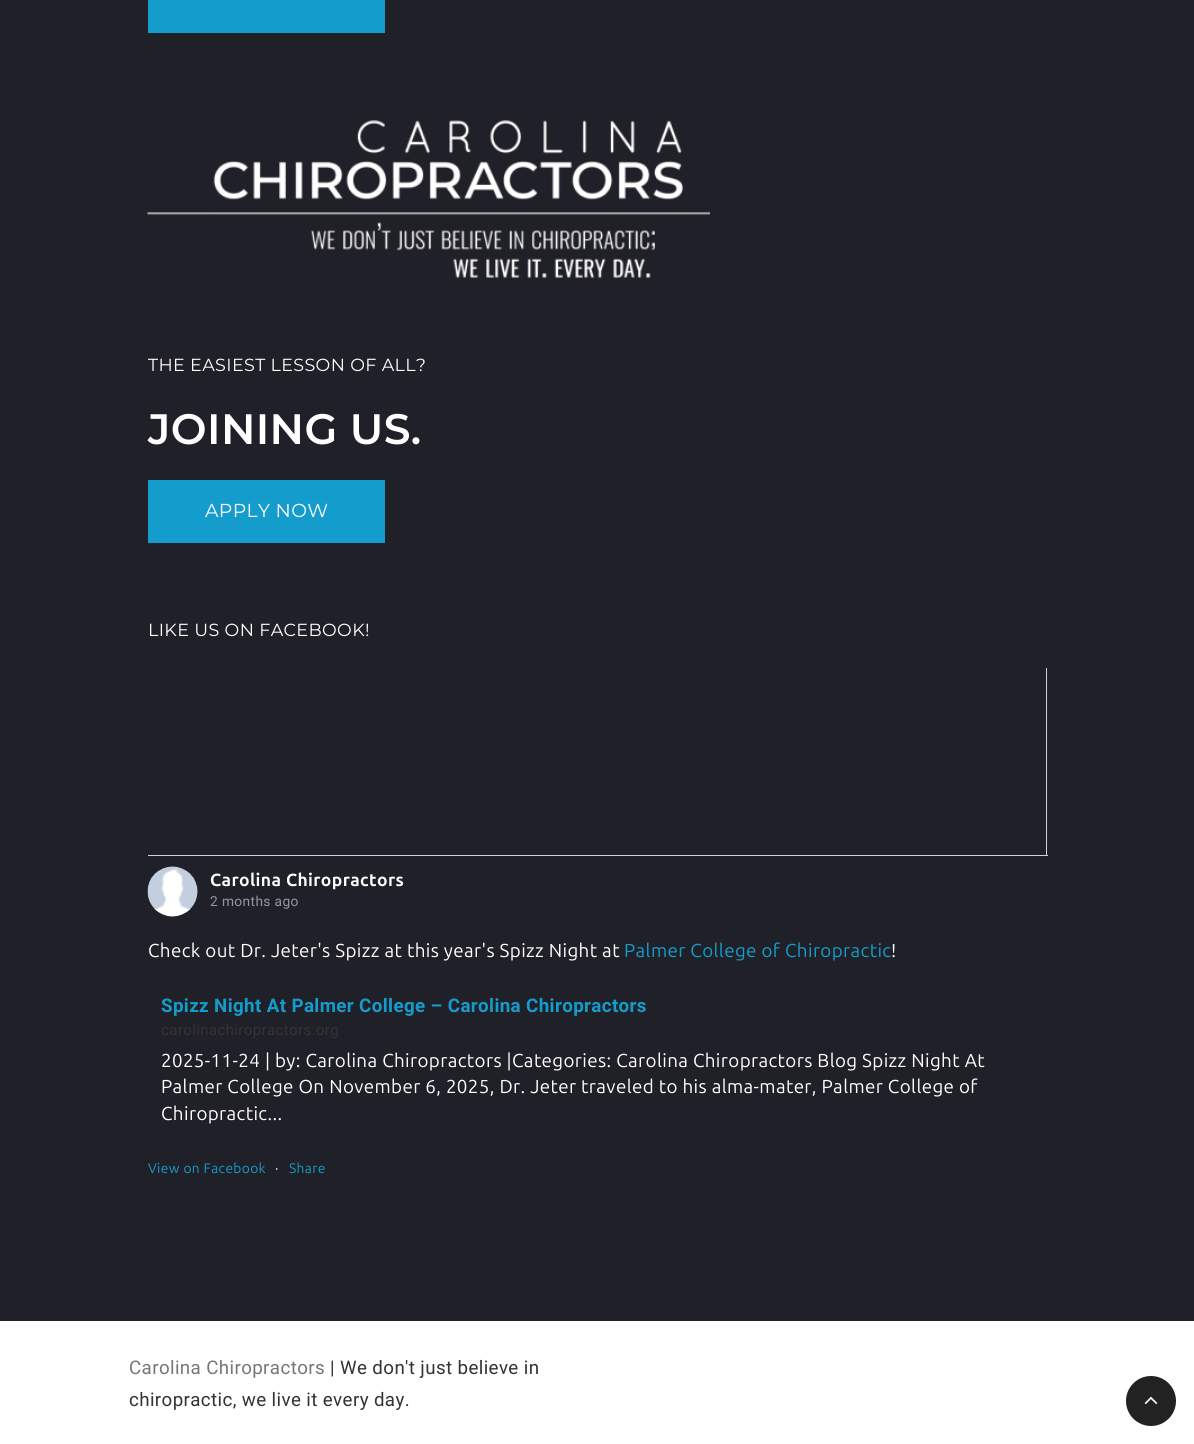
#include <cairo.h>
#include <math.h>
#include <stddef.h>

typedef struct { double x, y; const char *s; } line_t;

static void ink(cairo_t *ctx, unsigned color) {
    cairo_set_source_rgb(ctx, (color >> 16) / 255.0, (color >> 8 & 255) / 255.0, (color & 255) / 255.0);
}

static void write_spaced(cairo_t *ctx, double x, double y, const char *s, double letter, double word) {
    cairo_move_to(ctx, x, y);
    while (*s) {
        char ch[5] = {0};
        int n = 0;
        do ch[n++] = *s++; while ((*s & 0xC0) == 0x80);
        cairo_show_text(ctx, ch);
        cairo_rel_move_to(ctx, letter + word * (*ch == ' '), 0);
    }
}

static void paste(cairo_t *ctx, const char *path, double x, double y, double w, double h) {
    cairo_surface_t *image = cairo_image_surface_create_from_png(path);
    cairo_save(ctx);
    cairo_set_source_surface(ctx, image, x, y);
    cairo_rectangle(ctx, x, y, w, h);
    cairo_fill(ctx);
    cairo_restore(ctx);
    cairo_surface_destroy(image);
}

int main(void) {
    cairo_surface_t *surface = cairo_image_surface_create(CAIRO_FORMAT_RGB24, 1194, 1444);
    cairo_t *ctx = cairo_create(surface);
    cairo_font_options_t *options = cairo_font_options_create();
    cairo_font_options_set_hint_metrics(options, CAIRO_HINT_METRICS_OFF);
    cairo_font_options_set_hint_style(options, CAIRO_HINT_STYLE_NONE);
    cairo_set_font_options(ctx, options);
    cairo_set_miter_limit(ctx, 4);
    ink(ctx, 0xFFFFFF);
    cairo_paint(ctx);
    ink(ctx, 0x202028);
    cairo_rectangle(ctx, 0, 0, 1194, 1321);
    cairo_fill(ctx);
    ink(ctx, 0x149DCC);
    cairo_rectangle(ctx, 148, 0, 237, 33);
    cairo_fill(ctx);
    paste(ctx, "media/1.png", 147, 120, 563, 158);
    cairo_select_font_face(ctx, "Montserrat", CAIRO_FONT_SLANT_NORMAL, CAIRO_FONT_WEIGHT_NORMAL);
    cairo_set_font_size(ctx, 17.5);
    ink(ctx, 0xFFFFFF);
    write_spaced(ctx, 148, 371, "THE EASIEST LESSON OF ALL?", 0.38, 0);
    cairo_select_font_face(ctx, "Montserrat SemiBold", CAIRO_FONT_SLANT_NORMAL, CAIRO_FONT_WEIGHT_NORMAL);
    cairo_set_font_size(ctx, 42.5);
    write_spaced(ctx, 148, 444, "JOINING US.", 0.38, 0);
    ink(ctx, 0x149DCC);
    cairo_rectangle(ctx, 148, 480, 237, 63);
    cairo_fill(ctx);
    cairo_select_font_face(ctx, "Montserrat", CAIRO_FONT_SLANT_NORMAL, CAIRO_FONT_WEIGHT_NORMAL);
    cairo_set_font_size(ctx, 18.75);
    ink(ctx, 0xFFFFFF);
    write_spaced(ctx, 205, 517, "APPLY NOW", 0.38, 0);
    cairo_set_font_size(ctx, 17.5);
    write_spaced(ctx, 148, 636, "LIKE US ON FACEBOOK!", 0.38, 0);
    ink(ctx, 0xD2D2D4);
    cairo_rectangle(ctx, 1046, 668, 1, 188);
    cairo_fill(ctx);
    cairo_rectangle(ctx, 148, 855, 900, 1);
    cairo_fill(ctx);
    paste(ctx, "media/2.png", 147, 866, 51, 51);
    cairo_select_font_face(ctx, "Ubuntu", CAIRO_FONT_SLANT_NORMAL, CAIRO_FONT_WEIGHT_BOLD);
    ink(ctx, 0xFFFFFF);
    write_spaced(ctx, 210, 886, "Carolina Chiropractors", 0.38, 0);
    cairo_select_font_face(ctx, "Roboto", CAIRO_FONT_SLANT_NORMAL, CAIRO_FONT_WEIGHT_NORMAL);
    cairo_set_font_size(ctx, 13.75);
    ink(ctx, 0x9197A3);
    write_spaced(ctx, 210, 906, "2 months ago", 0.38, 0);
    cairo_select_font_face(ctx, "Ubuntu", CAIRO_FONT_SLANT_NORMAL, CAIRO_FONT_WEIGHT_NORMAL);
    cairo_set_font_size(ctx, 18.75);
    ink(ctx, 0xFFFFFF);
    write_spaced(ctx, 148, 957, "Check out Dr. Jeter's Spizz at this year's Spizz Night at", 0.38, 0);
    ink(ctx, 0x149DCC);
    write_spaced(ctx, 624, 957, "Palmer College of Chiropractic", 0.38, 0);
    ink(ctx, 0xFFFFFF);
    write_spaced(ctx, 891, 957, "!", 0.38, 0);
    cairo_rectangle(ctx, 148.5, 980.5, 899, 159);
    ink(ctx, 0x1E1E25);
    cairo_set_line_width(ctx, 1);
    cairo_stroke(ctx);
    cairo_select_font_face(ctx, "Roboto", CAIRO_FONT_SLANT_NORMAL, CAIRO_FONT_WEIGHT_BOLD);
    ink(ctx, 0x149DCC);
    write_spaced(ctx, 161, 1012, "Spizz Night At Palmer College – Carolina Chiropractors", 0.38, 0);
    cairo_select_font_face(ctx, "Roboto", CAIRO_FONT_SLANT_NORMAL, CAIRO_FONT_WEIGHT_NORMAL);
    cairo_set_font_size(ctx, 15);
    ink(ctx, 0x333333);
    write_spaced(ctx, 161, 1035, "carolinachiropractors.org", 0.38, 0);
    cairo_select_font_face(ctx, "Ubuntu", CAIRO_FONT_SLANT_NORMAL, CAIRO_FONT_WEIGHT_NORMAL);
    cairo_set_font_size(ctx, 18.75);
    ink(ctx, 0xFFFFFF);
    {
        static const line_t items[] = {
            {161, 1067, "2025-11-24 | by: Carolina Chiropractors |Categories: Carolina Chiropractors Blog Spizz Night At"},
            {161, 1093, "Palmer College On November 6, 2025, Dr. Jeter traveled to his alma-mater, Palmer College of"},
            {161, 1120, "Chiropractic..."},
        };
        for (size_t i = 0; i < sizeof items / sizeof *items; i++) {
            write_spaced(ctx, items[i].x, items[i].y, items[i].s, 0.38, 0);
        }
    }
    cairo_set_font_size(ctx, 13.75);
    ink(ctx, 0x149DCC);
    write_spaced(ctx, 148, 1173, "View on Facebook", 0.38, 0);
    ink(ctx, 0xFFFFFF);
    write_spaced(ctx, 275, 1173, "·", 0.38, 0);
    ink(ctx, 0x149DCC);
    write_spaced(ctx, 289, 1173, "Share", 0.38, 0);
    cairo_select_font_face(ctx, "Roboto", CAIRO_FONT_SLANT_NORMAL, CAIRO_FONT_WEIGHT_NORMAL);
    cairo_set_font_size(ctx, 18.75);
    ink(ctx, 0x777777);
    write_spaced(ctx, 129, 1374, "Carolina Chiropractors", 0.38, 0);
    ink(ctx, 0x333333);
    write_spaced(ctx, 330, 1374, "| We don't just believe in", 0.38, 0);
    write_spaced(ctx, 129, 1406, "chiropractic, we live it every day.", 0.38, 0);
    ink(ctx, 0x222222);
    cairo_new_path(ctx);
    cairo_arc(ctx, 1151, 1401, 25, 0, 2 * M_PI);
    cairo_fill(ctx);
    paste(ctx, "media/3.png", 1144, 1396, 14, 9);
    cairo_surface_write_to_png(surface, "image.png");
    cairo_font_options_destroy(options);
    cairo_destroy(ctx);
    cairo_surface_destroy(surface);
    return 0;
}
